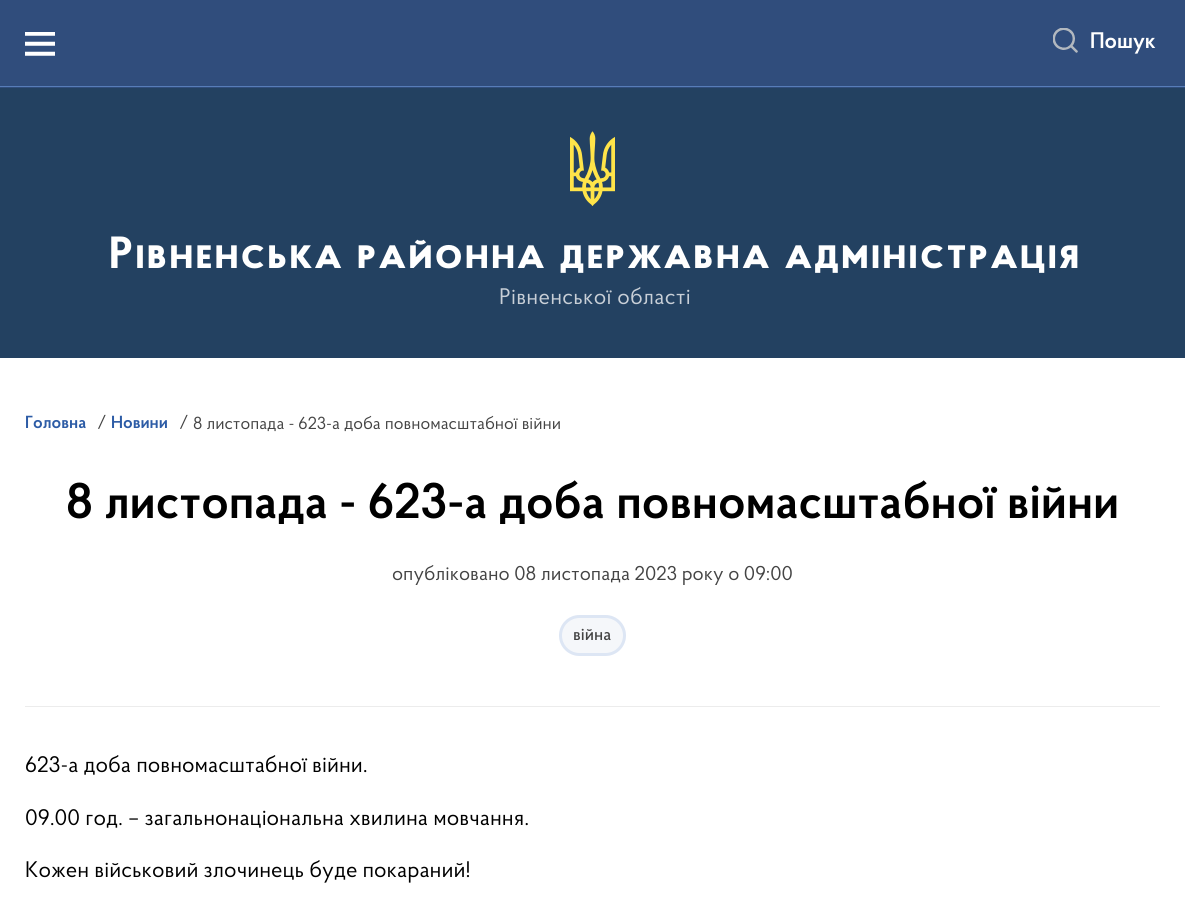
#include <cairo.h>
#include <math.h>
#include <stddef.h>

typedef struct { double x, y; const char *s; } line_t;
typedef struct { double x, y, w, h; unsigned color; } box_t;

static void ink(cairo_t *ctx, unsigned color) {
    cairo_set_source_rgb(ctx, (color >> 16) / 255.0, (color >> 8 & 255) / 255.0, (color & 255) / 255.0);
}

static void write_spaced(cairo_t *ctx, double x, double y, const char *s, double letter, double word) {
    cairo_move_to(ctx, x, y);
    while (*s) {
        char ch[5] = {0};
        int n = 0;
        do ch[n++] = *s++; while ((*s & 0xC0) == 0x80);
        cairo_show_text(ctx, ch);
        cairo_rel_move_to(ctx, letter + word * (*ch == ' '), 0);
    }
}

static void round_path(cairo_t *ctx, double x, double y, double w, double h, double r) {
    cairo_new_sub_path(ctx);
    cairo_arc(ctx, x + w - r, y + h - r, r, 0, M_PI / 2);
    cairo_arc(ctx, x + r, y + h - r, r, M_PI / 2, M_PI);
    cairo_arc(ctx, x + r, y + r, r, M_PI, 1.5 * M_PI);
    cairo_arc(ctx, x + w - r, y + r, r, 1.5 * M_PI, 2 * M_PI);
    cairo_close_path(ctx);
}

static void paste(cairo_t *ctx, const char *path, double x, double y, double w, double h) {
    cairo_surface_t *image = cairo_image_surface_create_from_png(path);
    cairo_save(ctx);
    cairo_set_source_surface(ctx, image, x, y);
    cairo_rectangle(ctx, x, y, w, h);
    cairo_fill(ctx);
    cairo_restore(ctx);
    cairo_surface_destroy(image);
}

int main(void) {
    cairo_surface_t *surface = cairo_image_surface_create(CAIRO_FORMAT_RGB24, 1185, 914);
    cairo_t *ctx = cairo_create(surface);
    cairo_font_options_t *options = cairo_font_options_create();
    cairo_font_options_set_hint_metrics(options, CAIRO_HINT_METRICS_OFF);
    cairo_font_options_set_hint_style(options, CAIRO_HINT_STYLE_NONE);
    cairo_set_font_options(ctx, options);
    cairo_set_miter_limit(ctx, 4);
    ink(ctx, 0xFFFFFF);
    cairo_paint(ctx);
    {
        static const box_t items[] = {
            {0, 88, 1185, 270, 0x234161},
            {0, 0, 1185, 88, 0x304D7C},
            {0, 86, 1185, 1, 0x577DB8},
        };
        for (size_t i = 0; i < sizeof items / sizeof *items; i++) {
            ink(ctx, items[i].color);
            cairo_rectangle(ctx, items[i].x, items[i].y, items[i].w, items[i].h);
            cairo_fill(ctx);
        }
    }
    paste(ctx, "media/1.png", 25, 32, 30, 24);
    paste(ctx, "media/2.png", 1053, 28, 25, 25);
    cairo_select_font_face(ctx, "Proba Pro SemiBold", CAIRO_FONT_SLANT_NORMAL, CAIRO_FONT_WEIGHT_NORMAL);
    cairo_set_font_size(ctx, 22.5);
    ink(ctx, 0xFFFFFF);
    cairo_move_to(ctx, 1090, 48);
    cairo_show_text(ctx, "Пошук");
    paste(ctx, "media/3.png", 570, 131, 45, 75);
    cairo_select_font_face(ctx, "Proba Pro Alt", CAIRO_FONT_SLANT_NORMAL, CAIRO_FONT_WEIGHT_BOLD);
    cairo_set_font_size(ctx, 45);
    write_spaced(ctx, 109, 268, "Рівненська районна державна адміністрація", 2.5, 0);
    cairo_select_font_face(ctx, "Proba Pro", CAIRO_FONT_SLANT_NORMAL, CAIRO_FONT_WEIGHT_NORMAL);
    cairo_set_font_size(ctx, 22.5);
    ink(ctx, 0xC8CFD7);
    write_spaced(ctx, 499, 304, "Рівненської області", 0.25, 0);
    cairo_select_font_face(ctx, "Proba Pro SemiBold", CAIRO_FONT_SLANT_NORMAL, CAIRO_FONT_WEIGHT_NORMAL);
    cairo_set_font_size(ctx, 17.5);
    ink(ctx, 0x2D5CA6);
    cairo_move_to(ctx, 25, 428);
    cairo_show_text(ctx, "Головна");
    cairo_select_font_face(ctx, "Proba Pro", CAIRO_FONT_SLANT_NORMAL, CAIRO_FONT_WEIGHT_NORMAL);
    ink(ctx, 0x444444);
    cairo_move_to(ctx, 97, 428);
    cairo_show_text(ctx, "/");
    cairo_select_font_face(ctx, "Proba Pro SemiBold", CAIRO_FONT_SLANT_NORMAL, CAIRO_FONT_WEIGHT_NORMAL);
    ink(ctx, 0x2D5CA6);
    cairo_move_to(ctx, 111, 428);
    cairo_show_text(ctx, "Новини");
    cairo_select_font_face(ctx, "Proba Pro", CAIRO_FONT_SLANT_NORMAL, CAIRO_FONT_WEIGHT_NORMAL);
    ink(ctx, 0x444444);
    cairo_move_to(ctx, 179, 428);
    cairo_show_text(ctx, "/");
    cairo_move_to(ctx, 193, 429);
    cairo_show_text(ctx, "8 листопада - 623-а доба повномасштабної війни");
    cairo_select_font_face(ctx, "Proba Pro SemiBold", CAIRO_FONT_SLANT_NORMAL, CAIRO_FONT_WEIGHT_NORMAL);
    cairo_set_font_size(ctx, 50);
    ink(ctx, 0x000000);
    cairo_move_to(ctx, 66, 518);
    cairo_show_text(ctx, "8 листопада - 623-а доба повномасштабної війни");
    cairo_select_font_face(ctx, "Proba Pro", CAIRO_FONT_SLANT_NORMAL, CAIRO_FONT_WEIGHT_NORMAL);
    cairo_set_font_size(ctx, 20);
    ink(ctx, 0x444444);
    cairo_move_to(ctx, 392, 580);
    cairo_show_text(ctx, "опубліковано 08 листопада 2023 року о 09:00");
    ink(ctx, 0xF5F7FA);
    round_path(ctx, 559, 615, 67, 41, 20.5);
    cairo_fill(ctx);
    round_path(ctx, 560.5, 616.5, 64, 38, 19);
    cairo_set_source_rgba(ctx, 0, 0.294, 0.757, 0.1);
    cairo_set_line_width(ctx, 3);
    cairo_stroke(ctx);
    cairo_select_font_face(ctx, "Proba Pro Medium", CAIRO_FONT_SLANT_NORMAL, CAIRO_FONT_WEIGHT_NORMAL);
    cairo_set_font_size(ctx, 17.5);
    ink(ctx, 0x444444);
    cairo_move_to(ctx, 573, 640);
    cairo_show_text(ctx, "війна");
    ink(ctx, 0xECECEC);
    cairo_rectangle(ctx, 25, 706, 1135, 1);
    cairo_fill(ctx);
    cairo_select_font_face(ctx, "Proba Pro", CAIRO_FONT_SLANT_NORMAL, CAIRO_FONT_WEIGHT_NORMAL);
    cairo_set_font_size(ctx, 22.5);
    ink(ctx, 0x000000);
    {
        static const line_t items[] = {
            {25, 772, "623-а доба повномасштабної війни."},
            {25, 825, "09.00 год. – загальнонаціональна хвилина мовчання."},
            {25, 877, "Кожен військовий злочинець буде покараний!"},
        };
        for (size_t i = 0; i < sizeof items / sizeof *items; i++) {
            cairo_move_to(ctx, items[i].x, items[i].y);
            cairo_show_text(ctx, items[i].s);
        }
    }
    cairo_surface_write_to_png(surface, "image.png");
    cairo_font_options_destroy(options);
    cairo_destroy(ctx);
    cairo_surface_destroy(surface);
    return 0;
}
